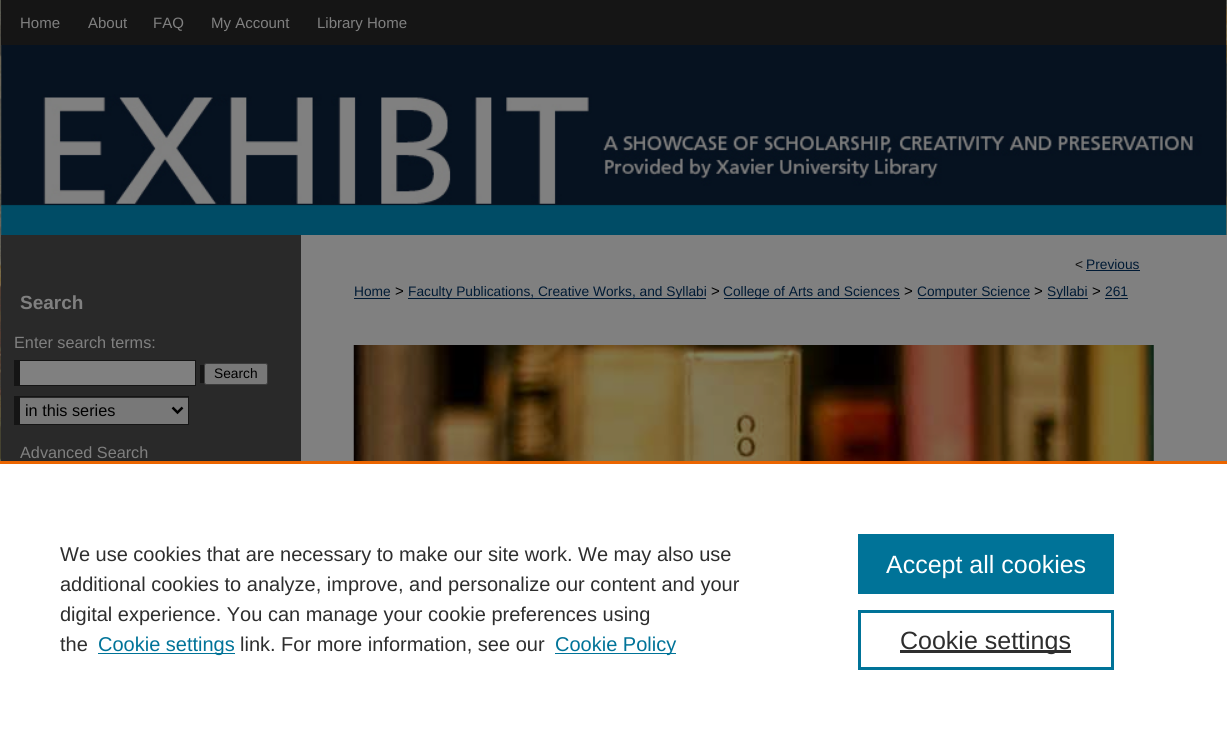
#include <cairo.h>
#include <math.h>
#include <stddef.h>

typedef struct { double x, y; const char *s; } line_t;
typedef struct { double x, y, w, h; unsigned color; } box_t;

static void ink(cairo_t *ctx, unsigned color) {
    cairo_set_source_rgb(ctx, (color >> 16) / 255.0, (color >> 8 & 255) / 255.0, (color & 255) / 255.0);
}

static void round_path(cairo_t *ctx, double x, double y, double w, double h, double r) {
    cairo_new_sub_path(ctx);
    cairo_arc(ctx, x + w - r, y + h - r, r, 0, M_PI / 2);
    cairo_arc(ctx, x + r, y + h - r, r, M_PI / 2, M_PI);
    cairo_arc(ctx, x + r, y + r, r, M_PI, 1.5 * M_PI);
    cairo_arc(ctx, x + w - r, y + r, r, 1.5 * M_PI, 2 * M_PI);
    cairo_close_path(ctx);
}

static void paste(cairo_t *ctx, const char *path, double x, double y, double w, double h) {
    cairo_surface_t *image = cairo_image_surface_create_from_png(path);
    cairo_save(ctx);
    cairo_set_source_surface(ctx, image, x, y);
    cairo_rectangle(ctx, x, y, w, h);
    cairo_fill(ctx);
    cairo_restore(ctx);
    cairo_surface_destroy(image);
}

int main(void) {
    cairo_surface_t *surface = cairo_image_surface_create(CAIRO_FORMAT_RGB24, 1227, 736);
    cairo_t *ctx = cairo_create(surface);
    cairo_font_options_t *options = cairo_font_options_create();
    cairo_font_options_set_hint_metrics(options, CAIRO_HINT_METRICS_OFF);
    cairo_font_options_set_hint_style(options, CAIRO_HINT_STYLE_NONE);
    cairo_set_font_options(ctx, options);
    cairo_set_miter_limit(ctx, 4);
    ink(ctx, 0xFFFFFF);
    cairo_paint(ctx);
    paste(ctx, "media/1.png", 0, 0, 1227, 461);
    ink(ctx, 0x151515);
    cairo_rectangle(ctx, 1, 0, 1225, 45);
    cairo_fill(ctx);
    cairo_select_font_face(ctx, "Liberation Sans", CAIRO_FONT_SLANT_NORMAL, CAIRO_FONT_WEIGHT_NORMAL);
    cairo_set_font_size(ctx, 15);
    ink(ctx, 0x808080);
    {
        static const line_t items[] = {
            {20, 28, "Home"},
            {88, 28, "About"},
            {153, 28, "FAQ"},
            {211, 28, "My Account"},
            {317, 28, "Library Home"},
        };
        for (size_t i = 0; i < sizeof items / sizeof *items; i++) {
            cairo_move_to(ctx, items[i].x, items[i].y);
            cairo_show_text(ctx, items[i].s);
        }
    }
    paste(ctx, "media/2.png", 1, 45, 1226, 190);
    ink(ctx, 0x292929);
    cairo_rectangle(ctx, 1, 235, 300, 226);
    cairo_fill(ctx);
    ink(ctx, 0x808080);
    cairo_rectangle(ctx, 301, 235, 926, 226);
    cairo_fill(ctx);
    cairo_set_font_size(ctx, 13.75);
    ink(ctx, 0x111111);
    cairo_move_to(ctx, 1075, 269);
    cairo_show_text(ctx, "<");
    ink(ctx, 0x001A34);
    cairo_move_to(ctx, 1086, 269);
    cairo_show_text(ctx, "Previous");
    cairo_rectangle(ctx, 1086, 270, 54, 1);
    cairo_fill(ctx);
    cairo_move_to(ctx, 354, 296);
    cairo_show_text(ctx, "Home");
    cairo_rectangle(ctx, 354, 298, 36, 1);
    cairo_fill(ctx);
    cairo_set_font_size(ctx, 15);
    ink(ctx, 0x000000);
    cairo_move_to(ctx, 395, 296);
    cairo_show_text(ctx, ">");
    ink(ctx, 0x001A34);
    cairo_rectangle(ctx, 408, 298, 298, 1);
    cairo_fill(ctx);
    cairo_set_font_size(ctx, 13.75);
    cairo_move_to(ctx, 408, 296);
    cairo_show_text(ctx, "Faculty Publications, Creative Works, and Syllabi");
    cairo_set_font_size(ctx, 15);
    ink(ctx, 0x000000);
    cairo_move_to(ctx, 711, 296);
    cairo_show_text(ctx, ">");
    ink(ctx, 0x001A34);
    cairo_rectangle(ctx, 724, 298, 176, 1);
    cairo_fill(ctx);
    cairo_set_font_size(ctx, 13.75);
    cairo_move_to(ctx, 723, 296);
    cairo_show_text(ctx, "College of Arts and Sciences");
    cairo_set_font_size(ctx, 15);
    ink(ctx, 0x000000);
    cairo_move_to(ctx, 904, 296);
    cairo_show_text(ctx, ">");
    ink(ctx, 0x001A34);
    cairo_rectangle(ctx, 918, 298, 112, 1);
    cairo_fill(ctx);
    cairo_set_font_size(ctx, 13.75);
    cairo_move_to(ctx, 917, 296);
    cairo_show_text(ctx, "Computer Science");
    cairo_set_font_size(ctx, 15);
    ink(ctx, 0x000000);
    cairo_move_to(ctx, 1034, 296);
    cairo_show_text(ctx, ">");
    ink(ctx, 0x001A34);
    cairo_rectangle(ctx, 1048, 298, 40, 1);
    cairo_fill(ctx);
    cairo_set_font_size(ctx, 13.75);
    cairo_move_to(ctx, 1047, 296);
    cairo_show_text(ctx, "Syllabi");
    cairo_set_font_size(ctx, 15);
    ink(ctx, 0x000000);
    cairo_move_to(ctx, 1092, 296);
    cairo_show_text(ctx, ">");
    cairo_set_font_size(ctx, 13.75);
    ink(ctx, 0x001A34);
    cairo_move_to(ctx, 1105, 296);
    cairo_show_text(ctx, "261");
    cairo_rectangle(ctx, 1105, 298, 23, 1);
    cairo_fill(ctx);
    paste(ctx, "media/3.png", 353, 345, 801, 116);
    cairo_select_font_face(ctx, "Liberation Sans", CAIRO_FONT_SLANT_NORMAL, CAIRO_FONT_WEIGHT_BOLD);
    cairo_set_font_size(ctx, 19);
    ink(ctx, 0x808080);
    cairo_move_to(ctx, 20, 309);
    cairo_show_text(ctx, "Search");
    cairo_select_font_face(ctx, "Liberation Sans", CAIRO_FONT_SLANT_NORMAL, CAIRO_FONT_WEIGHT_NORMAL);
    cairo_set_font_size(ctx, 16.25);
    cairo_move_to(ctx, 14, 348);
    cairo_show_text(ctx, "Enter search terms:");
    {
        static const box_t items[] = {
            {14, 360, 182, 26, 0x151515},
            {200, 365, 4, 18, 0x151515},
            {20, 361, 175, 24, 0x808080},
        };
        for (size_t i = 0; i < sizeof items / sizeof *items; i++) {
            ink(ctx, items[i].color);
            cairo_rectangle(ctx, items[i].x, items[i].y, items[i].w, items[i].h);
            cairo_fill(ctx);
        }
    }
    ink(ctx, 0x787878);
    round_path(ctx, 204.5, 363.5, 63, 21, 2);
    cairo_fill_preserve(ctx);
    ink(ctx, 0x3B3B3B);
    cairo_set_line_width(ctx, 1);
    cairo_stroke(ctx);
    cairo_set_font_size(ctx, 13.75);
    ink(ctx, 0x000000);
    cairo_move_to(ctx, 214, 378);
    cairo_show_text(ctx, "Search");
    {
        static const box_t items[] = {
            {20, 398, 168, 26, 0x787878},
            {14, 396, 175, 1, 0x151515},
            {188, 396, 1, 29, 0x151515},
            {14, 424, 175, 1, 0x151515},
            {14, 396, 6, 29, 0x151515},
        };
        for (size_t i = 0; i < sizeof items / sizeof *items; i++) {
            ink(ctx, items[i].color);
            cairo_rectangle(ctx, items[i].x, items[i].y, items[i].w, items[i].h);
            cairo_fill(ctx);
        }
    }
    cairo_new_path(ctx);
    cairo_move_to(ctx, 172.5, 407.5);
    cairo_line_to(ctx, 177.5, 412.5);
    cairo_line_to(ctx, 182.5, 407.5);
    ink(ctx, 0x000000);
    cairo_set_line_width(ctx, 2.5);
    cairo_stroke(ctx);
    cairo_set_font_size(ctx, 16.25);
    cairo_move_to(ctx, 25, 416);
    cairo_show_text(ctx, "in this series");
    ink(ctx, 0x808080);
    cairo_move_to(ctx, 20, 458);
    cairo_show_text(ctx, "Advanced Search");
    ink(ctx, 0xEB6500);
    cairo_rectangle(ctx, 0, 461, 1227, 3);
    cairo_fill(ctx);
    cairo_set_font_size(ctx, 20);
    ink(ctx, 0x2E2E2E);
    {
        static const line_t items[] = {
            {60, 561, "We use cookies that are necessary to make our site work. We may also use"},
            {60, 591, "additional cookies to analyze, improve, and personalize our content and your"},
            {60, 621, "digital experience. You can manage your cookie preferences using"},
            {60, 651, "the"},
        };
        for (size_t i = 0; i < sizeof items / sizeof *items; i++) {
            cairo_move_to(ctx, items[i].x, items[i].y);
            cairo_show_text(ctx, items[i].s);
        }
    }
    ink(ctx, 0x007398);
    cairo_rectangle(ctx, 98, 653, 137, 1);
    cairo_fill(ctx);
    cairo_move_to(ctx, 98, 651);
    cairo_show_text(ctx, "Cookie settings");
    ink(ctx, 0x2E2E2E);
    cairo_move_to(ctx, 240, 651);
    cairo_show_text(ctx, "link. For more information, see our");
    ink(ctx, 0x007398);
    cairo_rectangle(ctx, 555, 653, 121, 1);
    cairo_fill(ctx);
    cairo_move_to(ctx, 555, 651);
    cairo_show_text(ctx, "Cookie Policy");
    cairo_rectangle(ctx, 858, 534, 256, 60);
    cairo_fill(ctx);
    cairo_set_font_size(ctx, 25);
    ink(ctx, 0xFFFFFF);
    cairo_move_to(ctx, 886, 573);
    cairo_show_text(ctx, "Accept all cookies");
    cairo_rectangle(ctx, 859.5, 611.5, 253, 57);
    ink(ctx, 0x007398);
    cairo_set_line_width(ctx, 3);
    cairo_stroke(ctx);
    ink(ctx, 0x2E2E2E);
    cairo_rectangle(ctx, 900, 650, 171, 3);
    cairo_fill(ctx);
    cairo_move_to(ctx, 900, 649);
    cairo_show_text(ctx, "Cookie settings");
    cairo_surface_write_to_png(surface, "image.png");
    cairo_font_options_destroy(options);
    cairo_destroy(ctx);
    cairo_surface_destroy(surface);
    return 0;
}
